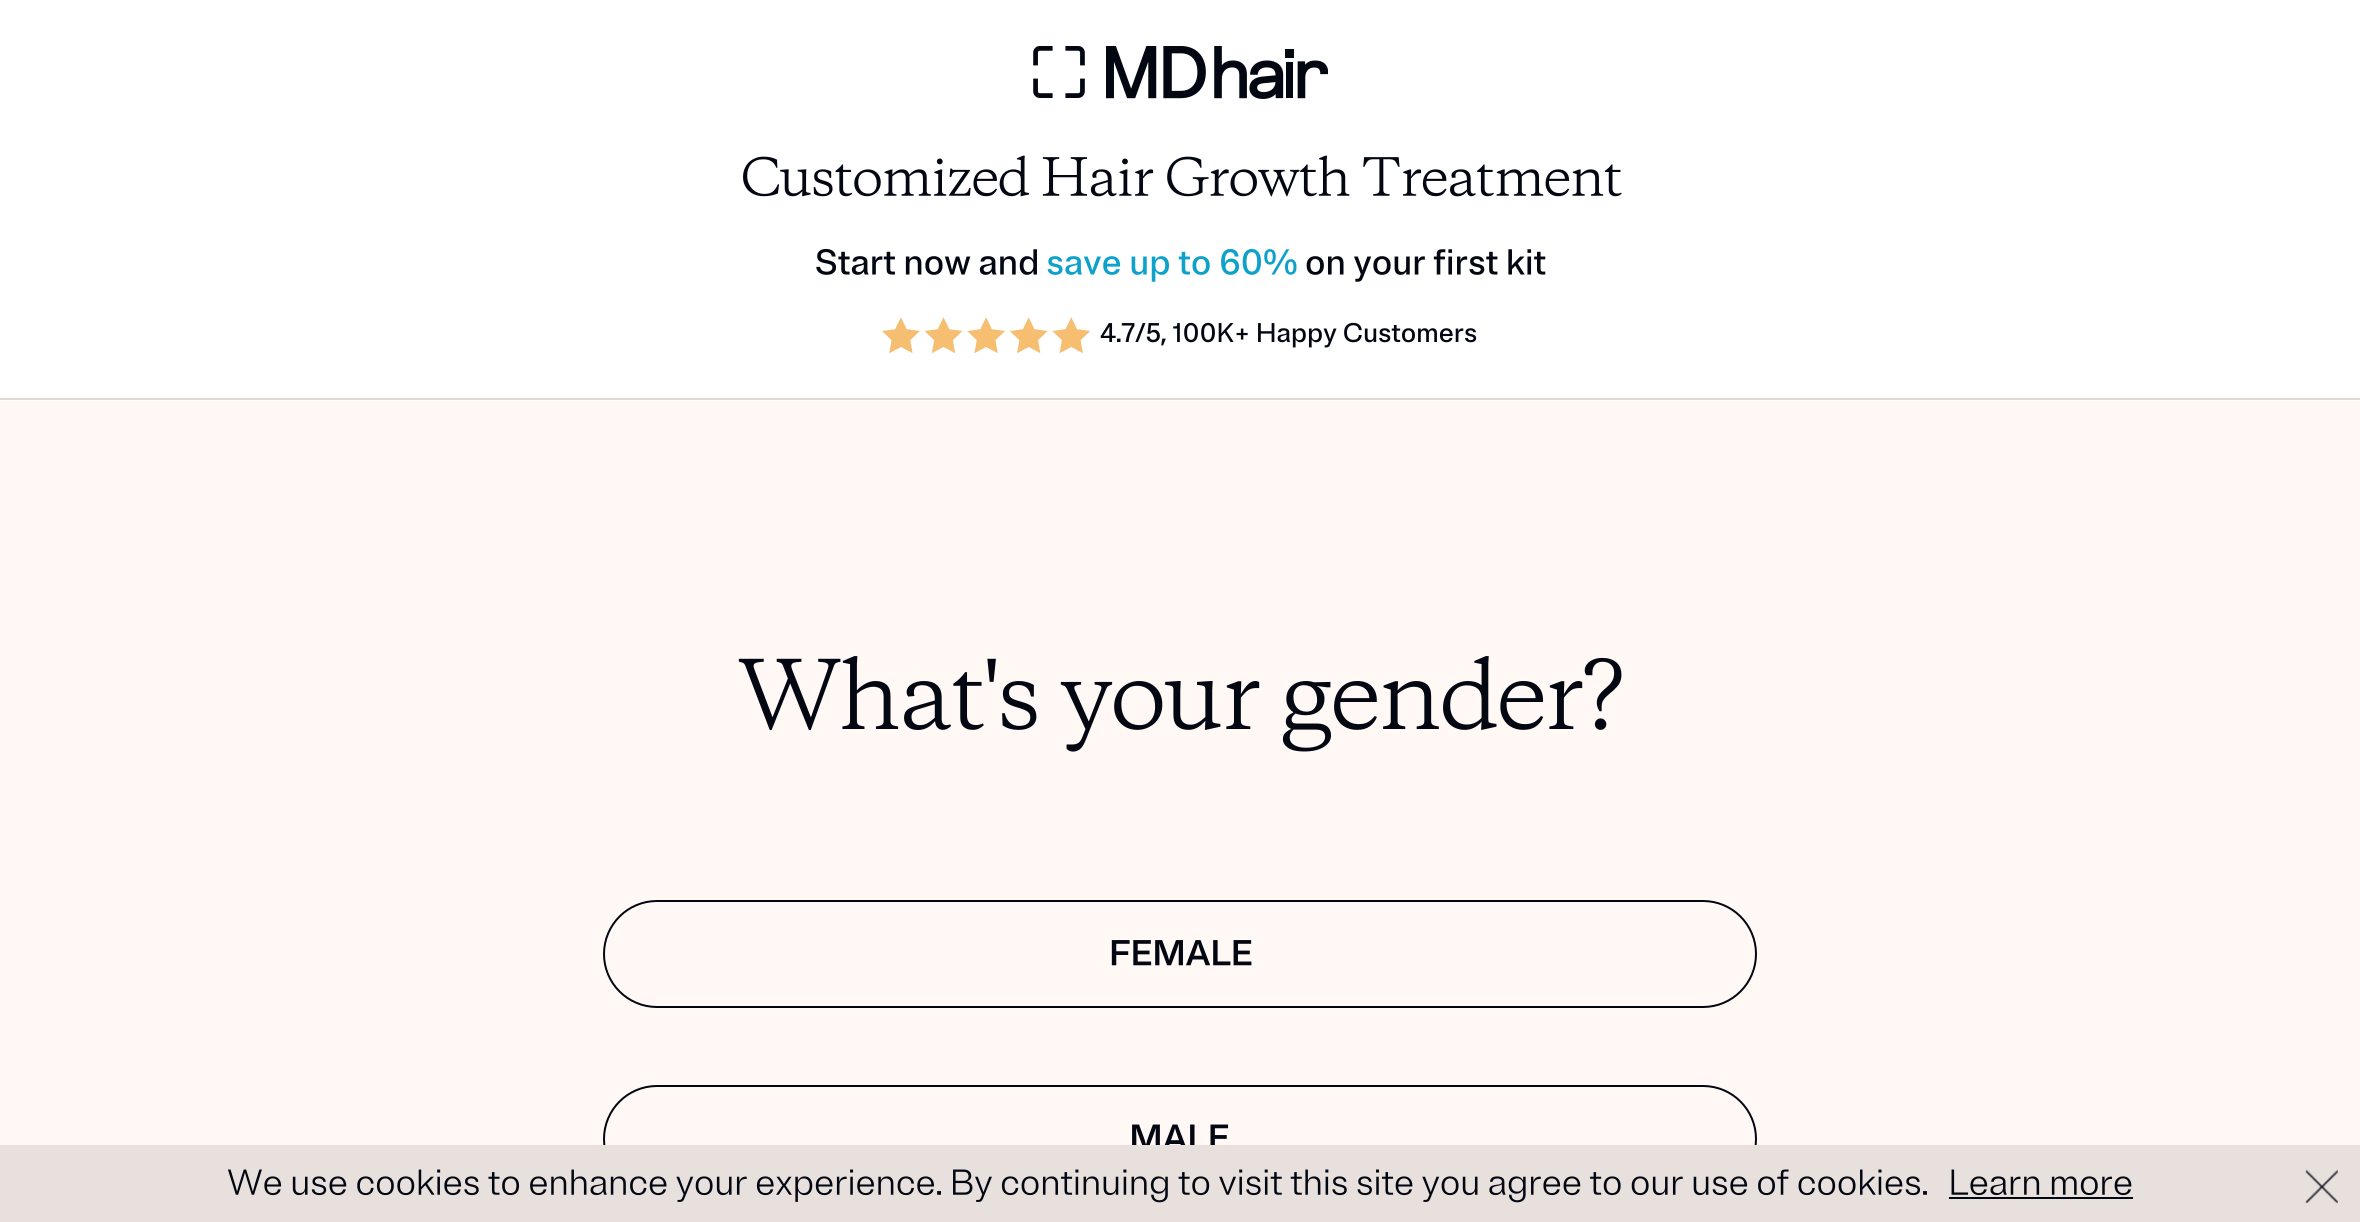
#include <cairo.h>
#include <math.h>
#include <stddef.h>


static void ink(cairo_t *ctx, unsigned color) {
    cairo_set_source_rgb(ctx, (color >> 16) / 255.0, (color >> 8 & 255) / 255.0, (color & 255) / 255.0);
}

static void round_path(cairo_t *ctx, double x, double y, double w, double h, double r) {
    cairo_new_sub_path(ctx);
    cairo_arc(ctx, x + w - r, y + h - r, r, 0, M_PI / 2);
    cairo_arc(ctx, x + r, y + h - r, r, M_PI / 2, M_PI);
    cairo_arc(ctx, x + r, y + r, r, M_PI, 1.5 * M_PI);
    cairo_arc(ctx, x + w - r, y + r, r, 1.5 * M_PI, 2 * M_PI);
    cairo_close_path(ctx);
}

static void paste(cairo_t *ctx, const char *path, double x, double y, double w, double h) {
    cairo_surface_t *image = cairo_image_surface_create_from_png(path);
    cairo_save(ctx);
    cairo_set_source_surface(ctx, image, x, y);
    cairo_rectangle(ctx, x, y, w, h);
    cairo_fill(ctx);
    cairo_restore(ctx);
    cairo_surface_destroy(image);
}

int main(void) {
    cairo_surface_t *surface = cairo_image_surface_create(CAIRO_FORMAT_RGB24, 2360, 1222);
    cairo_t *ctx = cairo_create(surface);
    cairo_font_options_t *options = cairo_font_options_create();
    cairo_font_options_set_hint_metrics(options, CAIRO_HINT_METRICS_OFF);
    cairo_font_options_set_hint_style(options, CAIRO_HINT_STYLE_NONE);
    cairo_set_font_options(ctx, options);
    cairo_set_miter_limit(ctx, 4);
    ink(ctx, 0xFFF8F5);
    cairo_paint(ctx);
    ink(ctx, 0xFFFFFF);
    cairo_rectangle(ctx, 0, 0, 2360, 401);
    cairo_fill(ctx);
    ink(ctx, 0xE1D8D4);
    cairo_rectangle(ctx, 0, 398, 2360, 2);
    cairo_fill(ctx);
    paste(ctx, "media/1.png", 1033, 46, 295, 53);
    paste(ctx, "media/2.png", 743, 155, 879, 42);
    paste(ctx, "media/3.png", 816, 248, 221, 27);
    paste(ctx, "media/4.png", 1047, 248, 250, 34);
    paste(ctx, "media/5.png", 1306, 249, 240, 33);
    paste(ctx, "media/6.png", 882, 317, 208, 36);
    paste(ctx, "media/7.png", 1100, 322, 377, 26);
    paste(ctx, "media/8.png", 738, 656, 884, 96);
    round_path(ctx, 604, 901, 1152, 106, 53);
    ink(ctx, 0x020711);
    cairo_stroke(ctx);
    paste(ctx, "media/9.png", 1111, 940, 141, 26);
    round_path(ctx, 604, 1086, 1152, 106, 53);
    cairo_stroke(ctx);
    paste(ctx, "media/10.png", 1132, 1124, 97, 21);
    ink(ctx, 0xE7E0DD);
    cairo_rectangle(ctx, 0, 1145, 2360, 77);
    cairo_fill(ctx);
    paste(ctx, "media/11.png", 228, 1169, 1699, 34);
    paste(ctx, "media/12.png", 1951, 1169, 181, 27);
    ink(ctx, 0x020711);
    cairo_rectangle(ctx, 1949, 1197, 184, 2);
    cairo_fill(ctx);
    paste(ctx, "media/13.png", 2305, 1169, 33, 35);
    cairo_surface_write_to_png(surface, "image.png");
    cairo_font_options_destroy(options);
    cairo_destroy(ctx);
    cairo_surface_destroy(surface);
    return 0;
}
